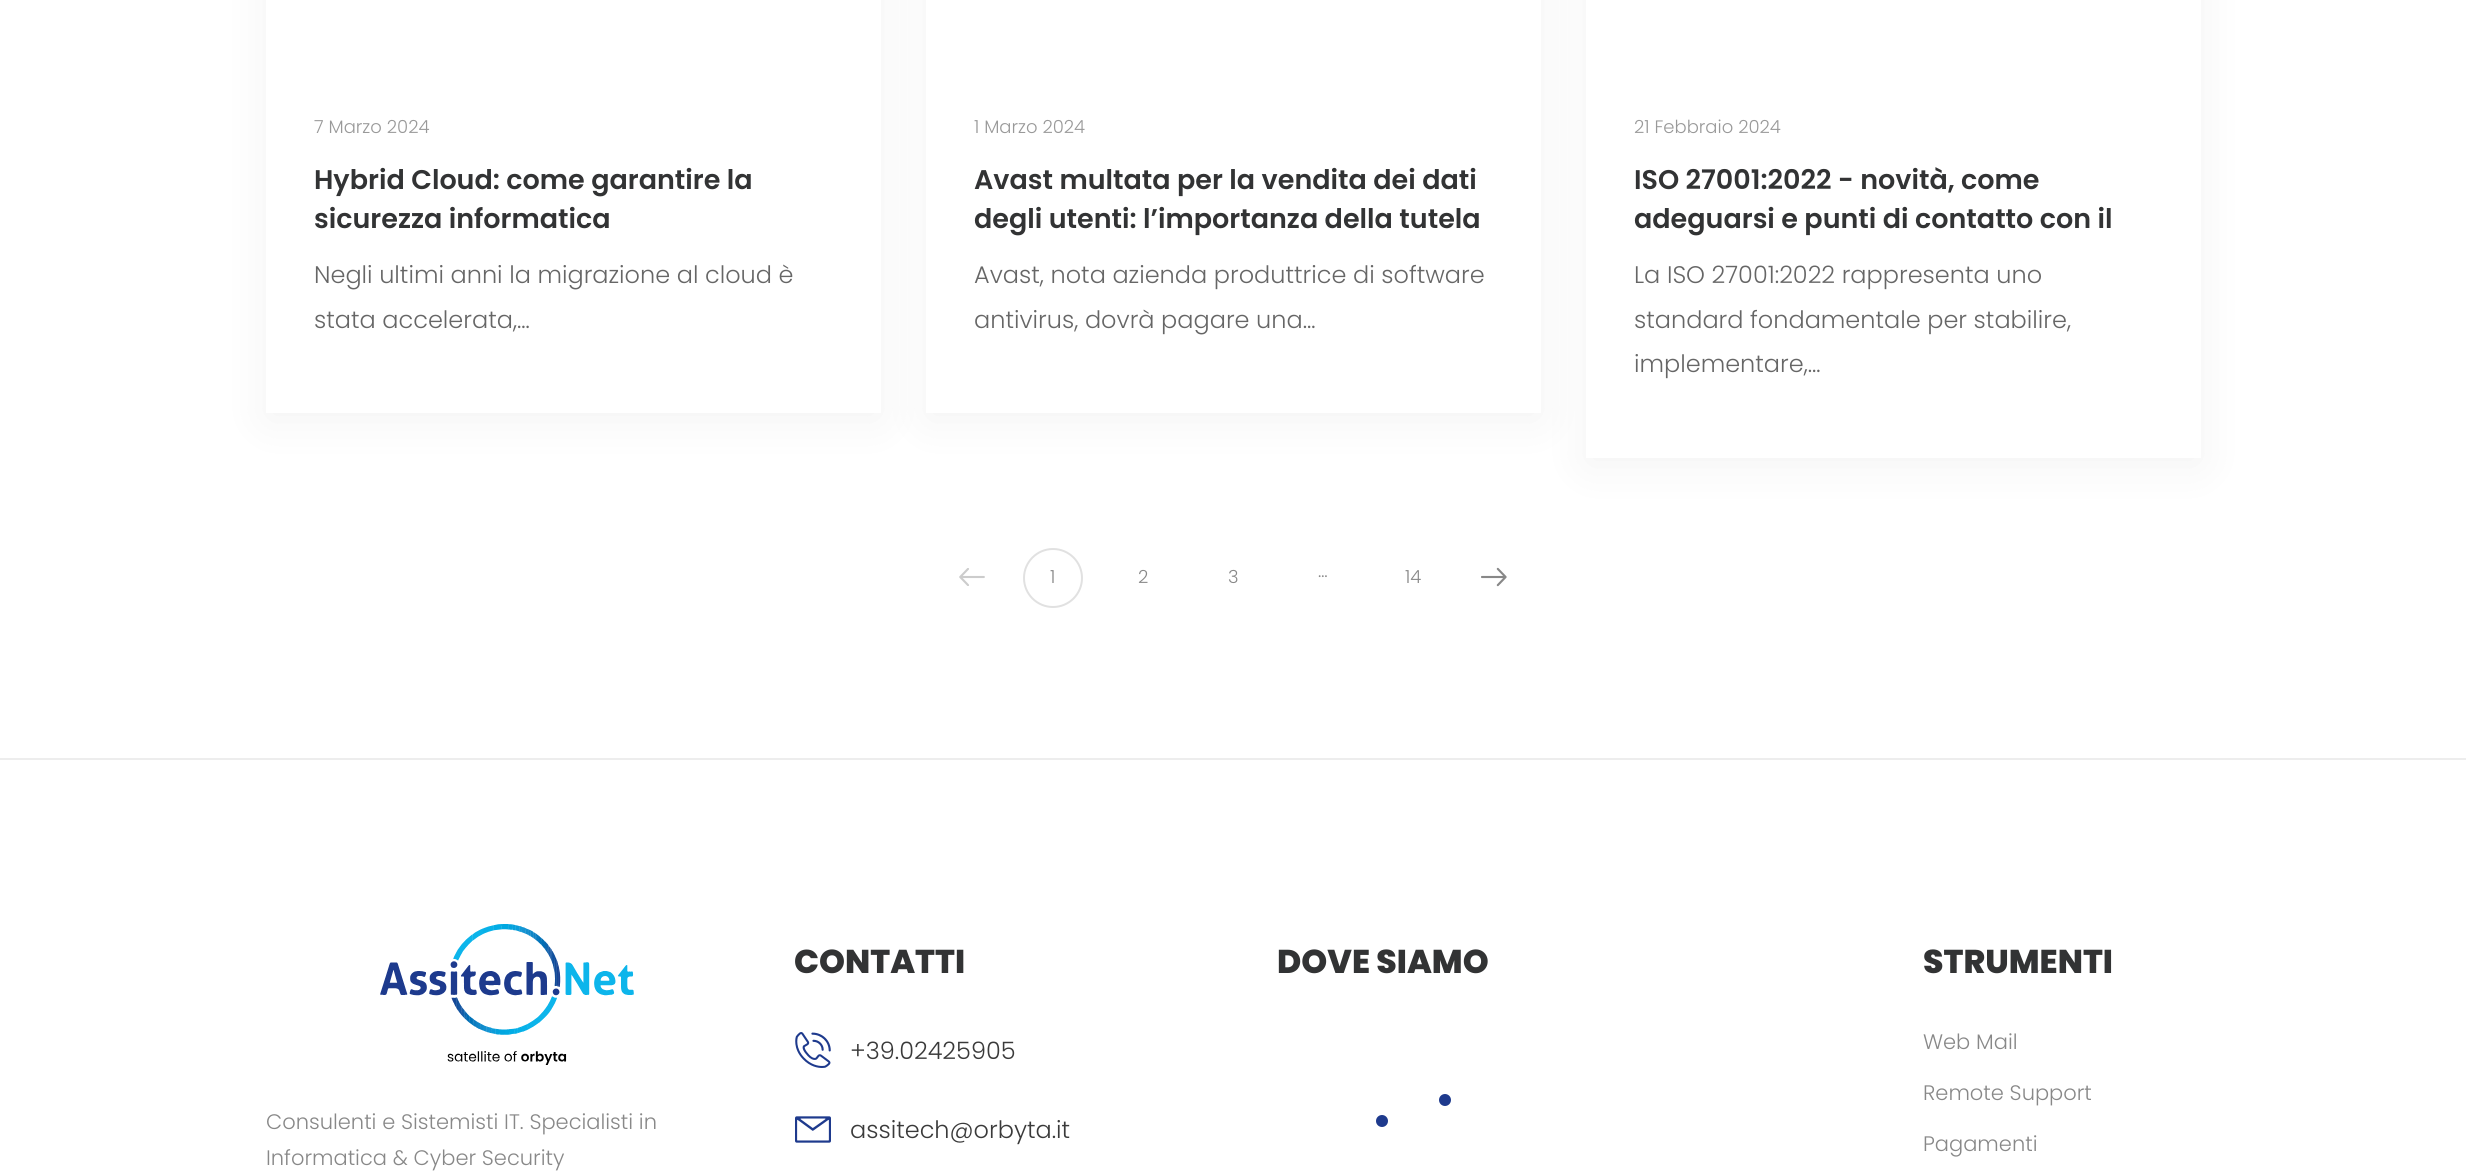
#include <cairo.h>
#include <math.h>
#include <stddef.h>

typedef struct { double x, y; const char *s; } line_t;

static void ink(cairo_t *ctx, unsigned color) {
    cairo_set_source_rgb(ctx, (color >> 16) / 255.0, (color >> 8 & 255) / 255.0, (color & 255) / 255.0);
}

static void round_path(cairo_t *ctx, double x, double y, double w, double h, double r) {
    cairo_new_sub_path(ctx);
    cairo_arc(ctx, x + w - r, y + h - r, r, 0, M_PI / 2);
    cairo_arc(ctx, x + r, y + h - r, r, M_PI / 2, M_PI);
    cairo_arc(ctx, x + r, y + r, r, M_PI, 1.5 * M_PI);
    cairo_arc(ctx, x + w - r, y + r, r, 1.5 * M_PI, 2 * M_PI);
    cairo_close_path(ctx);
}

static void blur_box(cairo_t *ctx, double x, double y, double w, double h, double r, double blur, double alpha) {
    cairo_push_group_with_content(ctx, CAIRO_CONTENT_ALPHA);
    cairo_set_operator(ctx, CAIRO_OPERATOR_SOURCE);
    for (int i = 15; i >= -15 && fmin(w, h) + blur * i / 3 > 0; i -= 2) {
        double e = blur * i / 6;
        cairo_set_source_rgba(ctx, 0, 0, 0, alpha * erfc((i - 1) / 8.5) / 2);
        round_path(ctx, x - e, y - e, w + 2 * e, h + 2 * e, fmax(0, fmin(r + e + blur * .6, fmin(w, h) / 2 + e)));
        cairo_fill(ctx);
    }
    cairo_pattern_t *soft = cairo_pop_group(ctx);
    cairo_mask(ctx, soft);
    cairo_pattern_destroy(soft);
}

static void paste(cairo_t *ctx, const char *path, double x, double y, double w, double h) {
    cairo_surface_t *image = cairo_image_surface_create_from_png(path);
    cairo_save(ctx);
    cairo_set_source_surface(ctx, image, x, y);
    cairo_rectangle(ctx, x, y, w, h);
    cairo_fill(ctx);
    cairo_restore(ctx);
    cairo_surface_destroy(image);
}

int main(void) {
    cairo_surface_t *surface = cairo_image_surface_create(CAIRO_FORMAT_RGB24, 2466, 1173);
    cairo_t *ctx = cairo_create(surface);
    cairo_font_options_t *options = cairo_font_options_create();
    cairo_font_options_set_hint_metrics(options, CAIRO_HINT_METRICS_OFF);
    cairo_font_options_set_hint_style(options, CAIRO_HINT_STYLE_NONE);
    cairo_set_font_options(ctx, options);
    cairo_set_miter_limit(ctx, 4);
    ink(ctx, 0xFFFFFF);
    cairo_paint(ctx);
    ink(ctx, 0xEDEDED);
    cairo_rectangle(ctx, 0, 758, 2466, 2);
    cairo_fill(ctx);
    ink(ctx, 0x000000);
    blur_box(ctx, 266, -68, 615, 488, 0, 22.5, 0.05);
    ink(ctx, 0xFFFFFF);
    cairo_rectangle(ctx, 266, 0, 615, 413);
    cairo_fill(ctx);
    cairo_select_font_face(ctx, "Poppins Light", CAIRO_FONT_SLANT_NORMAL, CAIRO_FONT_WEIGHT_NORMAL);
    cairo_set_font_size(ctx, 18);
    ink(ctx, 0x999999);
    cairo_move_to(ctx, 314, 133);
    cairo_show_text(ctx, "7 Marzo 2024");
    cairo_select_font_face(ctx, "Poppins SemiBold", CAIRO_FONT_SLANT_NORMAL, CAIRO_FONT_WEIGHT_NORMAL);
    cairo_set_font_size(ctx, 27);
    ink(ctx, 0x323334);
    cairo_move_to(ctx, 314, 189);
    cairo_show_text(ctx, "Hybrid Cloud: come garantire la");
    cairo_move_to(ctx, 314, 228);
    cairo_show_text(ctx, "sicurezza informatica");
    cairo_select_font_face(ctx, "Poppins Light", CAIRO_FONT_SLANT_NORMAL, CAIRO_FONT_WEIGHT_NORMAL);
    cairo_set_font_size(ctx, 24);
    ink(ctx, 0x666666);
    cairo_move_to(ctx, 314, 283);
    cairo_show_text(ctx, "Negli ultimi anni la migrazione al cloud è");
    cairo_move_to(ctx, 314, 328);
    cairo_show_text(ctx, "stata accelerata,…");
    ink(ctx, 0x000000);
    blur_box(ctx, 926, -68, 615, 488, 0, 22.5, 0.05);
    ink(ctx, 0xFFFFFF);
    cairo_rectangle(ctx, 926, 0, 615, 413);
    cairo_fill(ctx);
    cairo_set_font_size(ctx, 18);
    ink(ctx, 0x999999);
    cairo_move_to(ctx, 974, 133);
    cairo_show_text(ctx, "1 Marzo 2024");
    cairo_select_font_face(ctx, "Poppins SemiBold", CAIRO_FONT_SLANT_NORMAL, CAIRO_FONT_WEIGHT_NORMAL);
    cairo_set_font_size(ctx, 27);
    ink(ctx, 0x323334);
    cairo_move_to(ctx, 974, 189);
    cairo_show_text(ctx, "Avast multata per la vendita dei dati");
    cairo_move_to(ctx, 974, 228);
    cairo_show_text(ctx, "degli utenti: l’importanza della tutela");
    cairo_select_font_face(ctx, "Poppins Light", CAIRO_FONT_SLANT_NORMAL, CAIRO_FONT_WEIGHT_NORMAL);
    cairo_set_font_size(ctx, 24);
    ink(ctx, 0x666666);
    cairo_move_to(ctx, 974, 283);
    cairo_show_text(ctx, "Avast, nota azienda produttrice di software");
    cairo_move_to(ctx, 974, 328);
    cairo_show_text(ctx, "antivirus, dovrà pagare una…");
    ink(ctx, 0x000000);
    blur_box(ctx, 1586, -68, 615, 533, 0, 22.5, 0.05);
    ink(ctx, 0xFFFFFF);
    cairo_rectangle(ctx, 1586, 0, 615, 458);
    cairo_fill(ctx);
    cairo_set_font_size(ctx, 18);
    ink(ctx, 0x999999);
    cairo_move_to(ctx, 1634, 133);
    cairo_show_text(ctx, "21 Febbraio 2024");
    cairo_select_font_face(ctx, "Poppins SemiBold", CAIRO_FONT_SLANT_NORMAL, CAIRO_FONT_WEIGHT_NORMAL);
    cairo_set_font_size(ctx, 27);
    ink(ctx, 0x323334);
    cairo_move_to(ctx, 1634, 189);
    cairo_show_text(ctx, "ISO 27001:2022 - novità, come");
    cairo_move_to(ctx, 1634, 228);
    cairo_show_text(ctx, "adeguarsi e punti di contatto con il");
    cairo_select_font_face(ctx, "Poppins Light", CAIRO_FONT_SLANT_NORMAL, CAIRO_FONT_WEIGHT_NORMAL);
    cairo_set_font_size(ctx, 24);
    ink(ctx, 0x666666);
    {
        static const line_t items[] = {
            {1634, 283, "La ISO 27001:2022 rappresenta uno"},
            {1634, 328, "standard fondamentale per stabilire,"},
            {1634, 372, "implementare,…"},
        };
        for (size_t i = 0; i < sizeof items / sizeof *items; i++) {
            cairo_move_to(ctx, items[i].x, items[i].y);
            cairo_show_text(ctx, items[i].s);
        }
    }
    paste(ctx, "media/1.png", 959, 568, 26, 18);
    cairo_arc(ctx, 1053, 578, 29, 0, 2 * M_PI);
    ink(ctx, 0xE1E1E1);
    cairo_stroke(ctx);
    cairo_set_font_size(ctx, 18);
    ink(ctx, 0x888888);
    {
        static const line_t items[] = {
            {1050, 583, "1"},
            {1138, 583, "2"},
            {1228, 583, "3"},
            {1318, 577, "…"},
            {1405, 583, "14"},
        };
        for (size_t i = 0; i < sizeof items / sizeof *items; i++) {
            cairo_move_to(ctx, items[i].x, items[i].y);
            cairo_show_text(ctx, items[i].s);
        }
    }
    paste(ctx, "media/2.png", 1481, 567, 26, 20);
    paste(ctx, "media/3.png", 380, 924, 254, 141);
    cairo_set_font_size(ctx, 21);
    cairo_move_to(ctx, 266, 1129);
    cairo_show_text(ctx, "Consulenti e Sistemisti IT. Specialisti in");
    cairo_move_to(ctx, 266, 1165);
    cairo_show_text(ctx, "Informatica & Cyber Security");
    cairo_select_font_face(ctx, "Poppins ExtraBold", CAIRO_FONT_SLANT_NORMAL, CAIRO_FONT_WEIGHT_NORMAL);
    cairo_set_font_size(ctx, 33);
    ink(ctx, 0x323334);
    cairo_move_to(ctx, 794, 973);
    cairo_show_text(ctx, "CONTATTI");
    paste(ctx, "media/4.png", 795, 1032, 36, 36);
    cairo_select_font_face(ctx, "Poppins Light", CAIRO_FONT_SLANT_NORMAL, CAIRO_FONT_WEIGHT_NORMAL);
    cairo_set_font_size(ctx, 24);
    ink(ctx, 0x3A3A3A);
    cairo_move_to(ctx, 850, 1059);
    cairo_show_text(ctx, "+39.02425905");
    paste(ctx, "media/5.png", 795, 1116, 36, 27);
    cairo_move_to(ctx, 850, 1138);
    cairo_show_text(ctx, "assitech@orbyta.it");
    cairo_select_font_face(ctx, "Poppins ExtraBold", CAIRO_FONT_SLANT_NORMAL, CAIRO_FONT_WEIGHT_NORMAL);
    cairo_set_font_size(ctx, 33);
    ink(ctx, 0x323334);
    cairo_move_to(ctx, 1277, 973);
    cairo_show_text(ctx, "DOVE SIAMO");
    ink(ctx, 0x1E3A8D);
    cairo_new_path(ctx);
    cairo_arc(ctx, 1445, 1100, 6, 0, 2 * M_PI);
    cairo_fill(ctx);
    cairo_arc(ctx, 1382, 1121, 6, 0, 2 * M_PI);
    cairo_fill(ctx);
    ink(ctx, 0x323334);
    cairo_move_to(ctx, 1923, 973);
    cairo_show_text(ctx, "STRUMENTI");
    cairo_select_font_face(ctx, "Poppins Light", CAIRO_FONT_SLANT_NORMAL, CAIRO_FONT_WEIGHT_NORMAL);
    cairo_set_font_size(ctx, 21);
    ink(ctx, 0x888888);
    {
        static const line_t items[] = {
            {1923, 1049, "Web Mail"},
            {1923, 1100, "Remote Support"},
            {1923, 1151, "Pagamenti"},
        };
        for (size_t i = 0; i < sizeof items / sizeof *items; i++) {
            cairo_move_to(ctx, items[i].x, items[i].y);
            cairo_show_text(ctx, items[i].s);
        }
    }
    cairo_surface_write_to_png(surface, "image.png");
    cairo_font_options_destroy(options);
    cairo_destroy(ctx);
    cairo_surface_destroy(surface);
    return 0;
}
